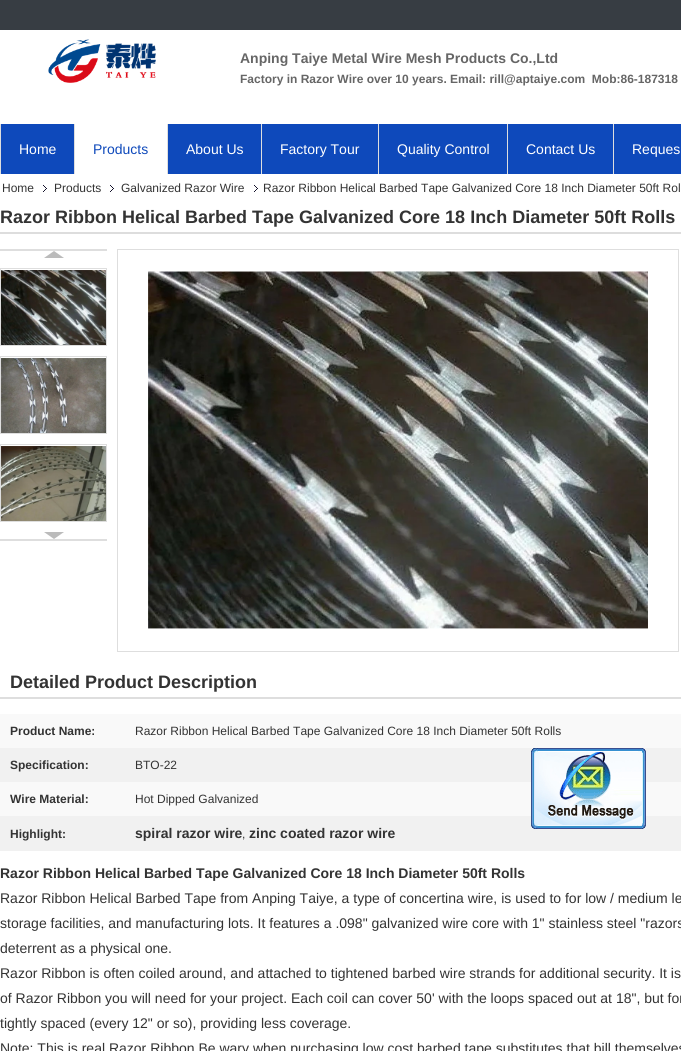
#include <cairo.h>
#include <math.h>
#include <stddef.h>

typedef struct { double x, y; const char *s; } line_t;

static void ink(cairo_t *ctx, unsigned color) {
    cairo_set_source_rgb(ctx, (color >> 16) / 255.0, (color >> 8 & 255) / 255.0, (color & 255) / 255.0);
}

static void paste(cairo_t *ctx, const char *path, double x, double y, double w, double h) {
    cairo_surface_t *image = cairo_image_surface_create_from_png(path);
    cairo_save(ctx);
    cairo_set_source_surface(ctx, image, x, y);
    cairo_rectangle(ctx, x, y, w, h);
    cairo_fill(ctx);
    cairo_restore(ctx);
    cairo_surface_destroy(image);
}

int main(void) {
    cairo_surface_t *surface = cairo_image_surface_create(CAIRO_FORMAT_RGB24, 681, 1051);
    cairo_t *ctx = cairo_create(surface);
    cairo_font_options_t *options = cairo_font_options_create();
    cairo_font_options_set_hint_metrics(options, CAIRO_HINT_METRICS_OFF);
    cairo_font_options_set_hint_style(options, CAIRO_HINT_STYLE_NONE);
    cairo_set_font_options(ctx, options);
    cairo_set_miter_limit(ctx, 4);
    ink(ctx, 0xFFFFFF);
    cairo_paint(ctx);
    ink(ctx, 0x373D43);
    cairo_rectangle(ctx, 0, 0, 681, 30);
    cairo_fill(ctx);
    paste(ctx, "media/1.png", 48, 39, 108, 44);
    cairo_select_font_face(ctx, "Liberation Sans", CAIRO_FONT_SLANT_NORMAL, CAIRO_FONT_WEIGHT_BOLD);
    cairo_set_font_size(ctx, 14);
    ink(ctx, 0x666666);
    cairo_move_to(ctx, 240, 63);
    cairo_show_text(ctx, "Anping Taiye Metal Wire Mesh Products Co.,Ltd");
    cairo_set_font_size(ctx, 12);
    cairo_move_to(ctx, 240, 83);
    cairo_show_text(ctx, "Factory in Razor Wire over 10 years. Email: rill@aptaiye.com  Mob:86-187318");
    ink(ctx, 0x0E49BB);
    cairo_rectangle(ctx, 1, 124, 680, 50);
    cairo_fill(ctx);
    ink(ctx, 0xDEDEDE);
    cairo_rectangle(ctx, 0, 124, 1, 50);
    cairo_fill(ctx);
    cairo_select_font_face(ctx, "Liberation Sans", CAIRO_FONT_SLANT_NORMAL, CAIRO_FONT_WEIGHT_NORMAL);
    cairo_set_font_size(ctx, 14);
    ink(ctx, 0xFFFFFF);
    cairo_move_to(ctx, 19, 154);
    cairo_show_text(ctx, "Home");
    cairo_rectangle(ctx, 75, 124, 92, 50);
    cairo_fill(ctx);
    ink(ctx, 0xDEDEDE);
    cairo_rectangle(ctx, 74, 124, 1, 50);
    cairo_fill(ctx);
    ink(ctx, 0x0E49BB);
    cairo_move_to(ctx, 93, 154);
    cairo_show_text(ctx, "Products");
    ink(ctx, 0xDEDEDE);
    cairo_rectangle(ctx, 167, 124, 1, 50);
    cairo_fill(ctx);
    ink(ctx, 0xFFFFFF);
    cairo_move_to(ctx, 186, 154);
    cairo_show_text(ctx, "About Us");
    ink(ctx, 0xDEDEDE);
    cairo_rectangle(ctx, 261, 124, 1, 50);
    cairo_fill(ctx);
    ink(ctx, 0xFFFFFF);
    cairo_move_to(ctx, 280, 154);
    cairo_show_text(ctx, "Factory Tour");
    ink(ctx, 0xDEDEDE);
    cairo_rectangle(ctx, 378, 124, 1, 50);
    cairo_fill(ctx);
    ink(ctx, 0xFFFFFF);
    cairo_move_to(ctx, 397, 154);
    cairo_show_text(ctx, "Quality Control");
    ink(ctx, 0xDEDEDE);
    cairo_rectangle(ctx, 507, 124, 1, 50);
    cairo_fill(ctx);
    ink(ctx, 0xFFFFFF);
    cairo_move_to(ctx, 526, 154);
    cairo_show_text(ctx, "Contact Us");
    ink(ctx, 0xDEDEDE);
    cairo_rectangle(ctx, 613, 124, 1, 50);
    cairo_fill(ctx);
    ink(ctx, 0xFFFFFF);
    cairo_move_to(ctx, 632, 154);
    cairo_show_text(ctx, "Reques");
    cairo_set_font_size(ctx, 12);
    ink(ctx, 0x333333);
    cairo_move_to(ctx, 2, 192);
    cairo_show_text(ctx, "Home");
    paste(ctx, "media/2.png", 43, 185, 4, 7);
    cairo_move_to(ctx, 54, 192);
    cairo_show_text(ctx, "Products");
    paste(ctx, "media/2.png", 110, 185, 4, 7);
    cairo_move_to(ctx, 121, 192);
    cairo_show_text(ctx, "Galvanized Razor Wire");
    paste(ctx, "media/2.png", 254, 185, 4, 7);
    cairo_move_to(ctx, 263, 192);
    cairo_show_text(ctx, "Razor Ribbon Helical Barbed Tape Galvanized Core 18 Inch Diameter 50ft Rol");
    ink(ctx, 0xDDDDDD);
    cairo_rectangle(ctx, 0, 232, 681, 2);
    cairo_fill(ctx);
    cairo_select_font_face(ctx, "Liberation Sans", CAIRO_FONT_SLANT_NORMAL, CAIRO_FONT_WEIGHT_BOLD);
    cairo_set_font_size(ctx, 18);
    ink(ctx, 0x333333);
    cairo_move_to(ctx, 0, 223);
    cairo_show_text(ctx, "Razor Ribbon Helical Barbed Tape Galvanized Core 18 Inch Diameter 50ft Rolls");
    ink(ctx, 0xDEDEDE);
    cairo_rectangle(ctx, 0, 249, 107, 2);
    cairo_fill(ctx);
    ink(ctx, 0xBBBBBB);
    cairo_new_path(ctx);
    cairo_move_to(ctx, 64, 258);
    cairo_line_to(ctx, 44, 258);
    cairo_line_to(ctx, 54, 251);
    cairo_close_path(ctx);
    cairo_fill(ctx);
    cairo_rectangle(ctx, 0.5, 268.5, 106, 77);
    ink(ctx, 0xDEDEDE);
    cairo_set_line_width(ctx, 1);
    cairo_stroke(ctx);
    paste(ctx, "media/3.png", 1, 270, 105, 75);
    cairo_rectangle(ctx, 0.5, 356.5, 106, 77);
    cairo_stroke(ctx);
    paste(ctx, "media/4.png", 1, 358, 105, 75);
    cairo_rectangle(ctx, 0.5, 444.5, 106, 77);
    cairo_stroke(ctx);
    paste(ctx, "media/5.png", 1, 446, 105, 75);
    cairo_rectangle(ctx, 0, 539, 107, 2);
    cairo_fill(ctx);
    ink(ctx, 0xBBBBBB);
    cairo_new_path(ctx);
    cairo_move_to(ctx, 44, 532);
    cairo_line_to(ctx, 64, 532);
    cairo_line_to(ctx, 54, 539);
    cairo_close_path(ctx);
    cairo_fill(ctx);
    cairo_rectangle(ctx, 117.5, 249.5, 561, 402);
    ink(ctx, 0xDEDEDE);
    cairo_stroke(ctx);
    paste(ctx, "media/6.png", 148, 271, 500, 358);
    cairo_rectangle(ctx, 0, 697, 681, 2);
    cairo_fill(ctx);
    ink(ctx, 0x333333);
    cairo_move_to(ctx, 10, 688);
    cairo_show_text(ctx, "Detailed Product Description");
    ink(ctx, 0xF9F9F9);
    cairo_rectangle(ctx, 0, 714, 681, 102);
    cairo_fill(ctx);
    cairo_set_font_size(ctx, 12);
    ink(ctx, 0x333333);
    cairo_move_to(ctx, 10, 735);
    cairo_show_text(ctx, "Product Name:");
    cairo_select_font_face(ctx, "Liberation Sans", CAIRO_FONT_SLANT_NORMAL, CAIRO_FONT_WEIGHT_NORMAL);
    cairo_move_to(ctx, 135, 735);
    cairo_show_text(ctx, "Razor Ribbon Helical Barbed Tape Galvanized Core 18 Inch Diameter 50ft Rolls");
    ink(ctx, 0xF1F1F1);
    cairo_rectangle(ctx, 0, 748, 681, 34);
    cairo_fill(ctx);
    cairo_select_font_face(ctx, "Liberation Sans", CAIRO_FONT_SLANT_NORMAL, CAIRO_FONT_WEIGHT_BOLD);
    ink(ctx, 0x333333);
    cairo_move_to(ctx, 10, 769);
    cairo_show_text(ctx, "Specification:");
    cairo_select_font_face(ctx, "Liberation Sans", CAIRO_FONT_SLANT_NORMAL, CAIRO_FONT_WEIGHT_NORMAL);
    cairo_move_to(ctx, 135, 769);
    cairo_show_text(ctx, "BTO-22");
    cairo_select_font_face(ctx, "Liberation Sans", CAIRO_FONT_SLANT_NORMAL, CAIRO_FONT_WEIGHT_BOLD);
    cairo_move_to(ctx, 10, 803);
    cairo_show_text(ctx, "Wire Material:");
    cairo_select_font_face(ctx, "Liberation Sans", CAIRO_FONT_SLANT_NORMAL, CAIRO_FONT_WEIGHT_NORMAL);
    cairo_move_to(ctx, 135, 803);
    cairo_show_text(ctx, "Hot Dipped Galvanized");
    ink(ctx, 0xF1F1F1);
    cairo_rectangle(ctx, 0, 816, 681, 35);
    cairo_fill(ctx);
    cairo_select_font_face(ctx, "Liberation Sans", CAIRO_FONT_SLANT_NORMAL, CAIRO_FONT_WEIGHT_BOLD);
    ink(ctx, 0x333333);
    cairo_move_to(ctx, 10, 838);
    cairo_show_text(ctx, "Highlight:");
    cairo_set_font_size(ctx, 14);
    cairo_move_to(ctx, 135, 838);
    cairo_show_text(ctx, "spiral razor wire");
    cairo_select_font_face(ctx, "Liberation Sans", CAIRO_FONT_SLANT_NORMAL, CAIRO_FONT_WEIGHT_NORMAL);
    cairo_set_font_size(ctx, 12);
    cairo_move_to(ctx, 242, 838);
    cairo_show_text(ctx, ",");
    cairo_select_font_face(ctx, "Liberation Sans", CAIRO_FONT_SLANT_NORMAL, CAIRO_FONT_WEIGHT_BOLD);
    cairo_set_font_size(ctx, 14);
    cairo_move_to(ctx, 249, 838);
    cairo_show_text(ctx, "zinc coated razor wire");
    cairo_move_to(ctx, 0, 878);
    cairo_show_text(ctx, "Razor Ribbon Helical Barbed Tape Galvanized Core 18 Inch Diameter 50ft Rolls");
    cairo_select_font_face(ctx, "Liberation Sans", CAIRO_FONT_SLANT_NORMAL, CAIRO_FONT_WEIGHT_NORMAL);
    {
        static const line_t items[] = {
            {0, 903, "Razor Ribbon Helical Barbed Tape from Anping Taiye, a type of concertina wire, is used to for low / medium le"},
            {0, 928, "storage facilities, and manufacturing lots. It features a .098\" galvanized wire core with 1\" stainless steel \"razors"},
            {0, 953, "deterrent as a physical one."},
            {0, 978, "Razor Ribbon is often coiled around, and attached to tightened barbed wire strands for additional security. It is"},
            {0, 1003, "of Razor Ribbon you will need for your project. Each coil can cover 50' with the loops spaced out at 18\", but for"},
            {0, 1028, "tightly spaced (every 12\" or so), providing less coverage."},
            {0, 1053, "Note: This is real Razor Ribbon.Be wary when purchasing low cost barbed tape substitutes that bill themselves"},
        };
        for (size_t i = 0; i < sizeof items / sizeof *items; i++) {
            cairo_move_to(ctx, items[i].x, items[i].y);
            cairo_show_text(ctx, items[i].s);
        }
    }
    paste(ctx, "media/7.png", 531, 748, 115, 81);
    cairo_surface_write_to_png(surface, "image.png");
    cairo_font_options_destroy(options);
    cairo_destroy(ctx);
    cairo_surface_destroy(surface);
    return 0;
}
